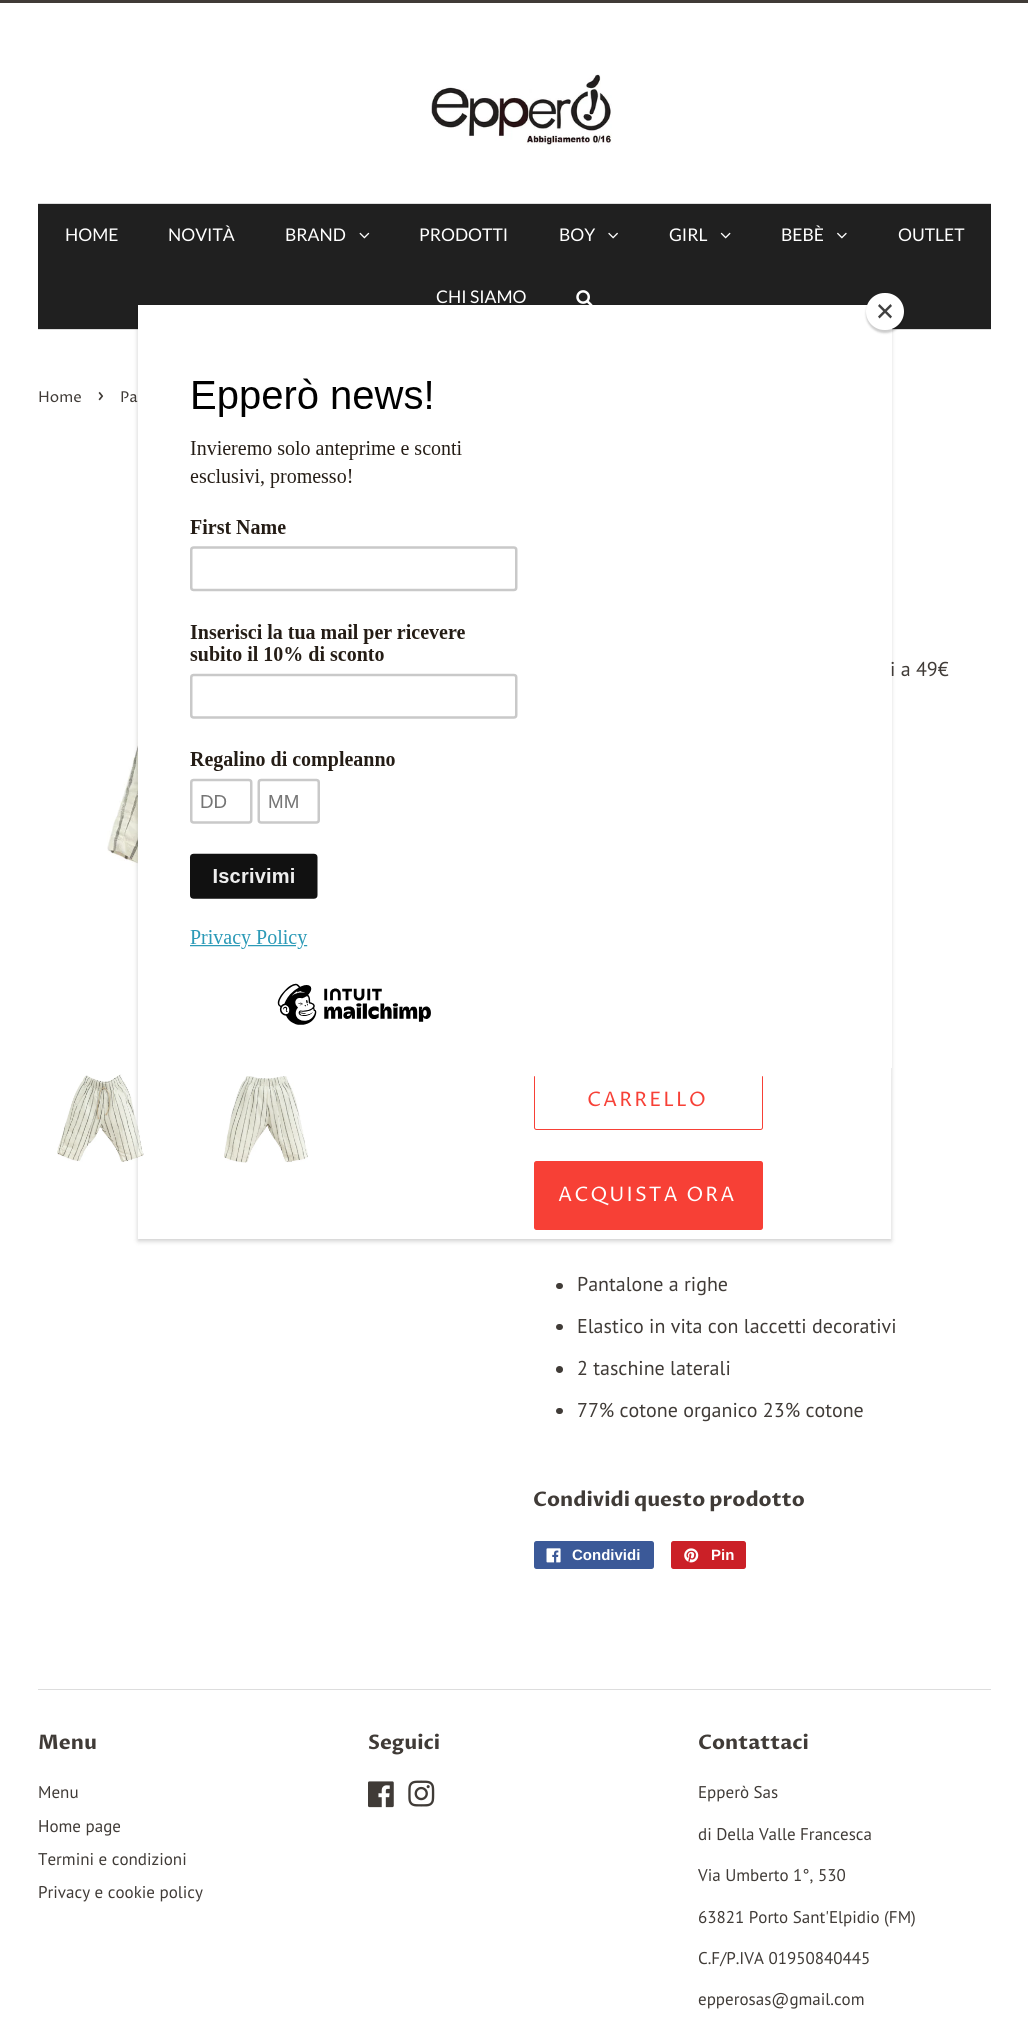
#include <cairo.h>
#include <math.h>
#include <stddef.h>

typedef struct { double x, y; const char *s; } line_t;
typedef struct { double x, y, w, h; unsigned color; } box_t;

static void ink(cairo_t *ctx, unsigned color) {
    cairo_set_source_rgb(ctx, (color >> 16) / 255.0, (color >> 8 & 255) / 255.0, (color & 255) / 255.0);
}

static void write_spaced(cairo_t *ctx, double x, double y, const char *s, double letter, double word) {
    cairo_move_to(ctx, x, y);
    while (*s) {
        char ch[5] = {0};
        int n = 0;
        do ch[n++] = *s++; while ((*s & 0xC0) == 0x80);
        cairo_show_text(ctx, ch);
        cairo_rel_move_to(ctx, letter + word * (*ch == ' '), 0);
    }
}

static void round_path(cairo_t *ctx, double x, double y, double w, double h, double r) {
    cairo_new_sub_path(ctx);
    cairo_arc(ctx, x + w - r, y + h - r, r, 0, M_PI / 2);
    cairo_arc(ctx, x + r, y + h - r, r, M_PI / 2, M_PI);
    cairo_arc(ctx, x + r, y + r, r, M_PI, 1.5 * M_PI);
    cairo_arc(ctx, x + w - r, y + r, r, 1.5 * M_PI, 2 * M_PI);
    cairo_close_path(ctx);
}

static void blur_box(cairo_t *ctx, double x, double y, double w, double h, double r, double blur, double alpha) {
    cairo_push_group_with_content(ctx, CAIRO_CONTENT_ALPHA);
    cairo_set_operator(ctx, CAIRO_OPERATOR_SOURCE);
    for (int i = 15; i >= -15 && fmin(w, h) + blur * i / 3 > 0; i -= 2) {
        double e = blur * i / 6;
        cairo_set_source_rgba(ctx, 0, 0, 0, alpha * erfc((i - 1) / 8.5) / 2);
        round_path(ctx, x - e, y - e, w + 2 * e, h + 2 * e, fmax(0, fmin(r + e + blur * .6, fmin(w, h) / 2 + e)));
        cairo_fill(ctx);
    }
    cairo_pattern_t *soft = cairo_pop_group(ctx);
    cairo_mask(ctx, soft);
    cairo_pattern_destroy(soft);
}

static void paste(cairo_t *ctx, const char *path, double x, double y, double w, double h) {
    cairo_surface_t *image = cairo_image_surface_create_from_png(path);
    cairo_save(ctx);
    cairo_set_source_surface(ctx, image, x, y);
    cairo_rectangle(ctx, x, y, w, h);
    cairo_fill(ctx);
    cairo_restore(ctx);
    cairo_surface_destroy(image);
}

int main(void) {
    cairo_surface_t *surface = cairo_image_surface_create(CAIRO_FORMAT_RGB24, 1028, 2033);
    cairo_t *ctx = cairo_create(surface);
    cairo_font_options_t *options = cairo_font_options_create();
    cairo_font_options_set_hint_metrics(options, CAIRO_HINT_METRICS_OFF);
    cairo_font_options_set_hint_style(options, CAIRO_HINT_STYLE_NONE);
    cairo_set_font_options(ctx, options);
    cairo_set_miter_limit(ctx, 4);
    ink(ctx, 0xFFFFFF);
    cairo_paint(ctx);
    ink(ctx, 0x403B37);
    cairo_rectangle(ctx, 0, 0, 1028, 3);
    cairo_fill(ctx);
    paste(ctx, "media/1.png", 431, 74, 181, 71);
    {
        static const box_t items[] = {
            {38, 203, 953, 1, 0xDDDDDD},
            {38, 329, 953, 1, 0xDDDDDD},
            {38, 204, 953, 125, 0x202020},
        };
        for (size_t i = 0; i < sizeof items / sizeof *items; i++) {
            ink(ctx, items[i].color);
            cairo_rectangle(ctx, items[i].x, items[i].y, items[i].w, items[i].h);
            cairo_fill(ctx);
        }
    }
    cairo_select_font_face(ctx, "Lato", CAIRO_FONT_SLANT_NORMAL, CAIRO_FONT_WEIGHT_NORMAL);
    cairo_set_font_size(ctx, 17.5);
    ink(ctx, 0xFFFFFF);
    {
        static const line_t items[] = {
            {65, 241, "HOME"},
            {168, 241, "NOVITÀ"},
            {285, 241, "BRAND"},
        };
        for (size_t i = 0; i < sizeof items / sizeof *items; i++) {
            cairo_move_to(ctx, items[i].x, items[i].y);
            cairo_show_text(ctx, items[i].s);
        }
    }
    paste(ctx, "media/2.png", 359, 232, 11, 7);
    cairo_move_to(ctx, 419, 241);
    cairo_show_text(ctx, "PRODOTTI");
    cairo_move_to(ctx, 559, 241);
    cairo_show_text(ctx, "BOY");
    paste(ctx, "media/3.png", 608, 232, 10, 7);
    cairo_move_to(ctx, 669, 241);
    cairo_show_text(ctx, "GIRL");
    paste(ctx, "media/4.png", 720, 232, 11, 7);
    cairo_move_to(ctx, 781, 241);
    cairo_show_text(ctx, "BEBÈ");
    paste(ctx, "media/5.png", 837, 232, 10, 7);
    cairo_move_to(ctx, 898, 241);
    cairo_show_text(ctx, "OUTLET");
    cairo_move_to(ctx, 436, 303);
    cairo_show_text(ctx, "CHI SIAMO");
    paste(ctx, "media/6.png", 576, 290, 17, 15);
    paste(ctx, "media/8.png", 107, 566, 31, 316);
    paste(ctx, "media/9.png", 57, 1074, 87, 88);
    paste(ctx, "media/10.png", 224, 1076, 84, 87);
    round_path(ctx, 534.5, 1035.5, 228, 94, 2);
    ink(ctx, 0xF74036);
    cairo_set_line_width(ctx, 1);
    cairo_stroke(ctx);
    round_path(ctx, 534, 1161, 229, 69, 2.5);
    cairo_fill(ctx);
    cairo_save(ctx);
    cairo_set_fill_rule(ctx, CAIRO_FILL_RULE_EVEN_ODD);
    cairo_new_path(ctx);
    cairo_move_to(ctx, 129, 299);
    cairo_line_to(ctx, 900, 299);
    cairo_line_to(ctx, 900, 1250);
    cairo_line_to(ctx, 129, 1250);
    cairo_close_path(ctx);
    cairo_move_to(ctx, 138, 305);
    cairo_line_to(ctx, 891, 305);
    cairo_line_to(ctx, 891, 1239);
    cairo_line_to(ctx, 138, 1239);
    cairo_close_path(ctx);
    cairo_clip(ctx);
    ink(ctx, 0x000000);
    blur_box(ctx, 138, 308, 753, 933, 0, 2.5, 0.2);
    cairo_restore(ctx);
    paste(ctx, "media/7.png", 138, 305, 754, 772);
    ink(ctx, 0x000000);
    blur_box(ctx, 866, 295, 38, 38, 19, 1, 0.2);
    ink(ctx, 0xFFFFFF);
    round_path(ctx, 866, 293, 38, 37, 18.5);
    cairo_fill(ctx);
    ink(ctx, 0x414141);
    cairo_new_path(ctx);
    cairo_move_to(ctx, 890.5, 304);
    cairo_line_to(ctx, 892, 306);
    cairo_line_to(ctx, 879.5, 318.5);
    cairo_line_to(ctx, 878, 316.5);
    cairo_close_path(ctx);
    cairo_fill(ctx);
    cairo_new_path(ctx);
    cairo_move_to(ctx, 878, 306);
    cairo_line_to(ctx, 879.5, 304);
    cairo_line_to(ctx, 892, 316.5);
    cairo_line_to(ctx, 890.5, 318.5);
    cairo_close_path(ctx);
    cairo_fill(ctx);
    cairo_select_font_face(ctx, "Proza Libre", CAIRO_FONT_SLANT_NORMAL, CAIRO_FONT_WEIGHT_NORMAL);
    cairo_set_font_size(ctx, 15);
    ink(ctx, 0x403B37);
    cairo_move_to(ctx, 38, 402);
    cairo_show_text(ctx, "Home");
    cairo_set_font_size(ctx, 21);
    cairo_move_to(ctx, 97, 402);
    cairo_show_text(ctx, "›");
    cairo_set_font_size(ctx, 15);
    cairo_move_to(ctx, 120, 402);
    cairo_show_text(ctx, "Pa");
    cairo_select_font_face(ctx, "PT Sans", CAIRO_FONT_SLANT_NORMAL, CAIRO_FONT_WEIGHT_NORMAL);
    cairo_set_font_size(ctx, 20);
    cairo_move_to(ctx, 890, 676);
    cairo_show_text(ctx, "i a 49€");
    cairo_select_font_face(ctx, "Proza Libre", CAIRO_FONT_SLANT_NORMAL, CAIRO_FONT_WEIGHT_NORMAL);
    ink(ctx, 0xF74036);
    write_spaced(ctx, 587, 1106, "CARRELLO", 2, 0);
    ink(ctx, 0xFFFFFF);
    write_spaced(ctx, 558, 1201, "ACQUISTA ORA", 2, 0);
    ink(ctx, 0x403B37);
    round_path(ctx, 556, 1283, 7, 6, 3);
    cairo_fill(ctx);
    cairo_select_font_face(ctx, "PT Sans", CAIRO_FONT_SLANT_NORMAL, CAIRO_FONT_WEIGHT_NORMAL);
    cairo_move_to(ctx, 577, 1291);
    cairo_show_text(ctx, "Pantalone a righe");
    round_path(ctx, 556, 1324, 7, 6, 3);
    cairo_fill(ctx);
    cairo_move_to(ctx, 577, 1333);
    cairo_show_text(ctx, "Elastico in vita con laccetti decorativi");
    cairo_new_path(ctx);
    cairo_arc(ctx, 559.5, 1369.5, 3.5, 0, 2 * M_PI);
    cairo_fill(ctx);
    cairo_move_to(ctx, 577, 1375);
    cairo_show_text(ctx, "2 taschine laterali");
    round_path(ctx, 556, 1408, 7, 6, 3);
    cairo_fill(ctx);
    cairo_move_to(ctx, 577, 1417);
    cairo_show_text(ctx, "77% cotone organico 23% cotone");
    cairo_select_font_face(ctx, "Proza Libre", CAIRO_FONT_SLANT_NORMAL, CAIRO_FONT_WEIGHT_BOLD);
    cairo_move_to(ctx, 533, 1506);
    cairo_show_text(ctx, "Condividi questo prodotto");
    ink(ctx, 0x3B5998);
    round_path(ctx, 534, 1541, 120, 28, 2.5);
    cairo_fill(ctx);
    paste(ctx, "media/11.png", 546, 1548, 15, 15);
    cairo_select_font_face(ctx, "Liberation Sans", CAIRO_FONT_SLANT_NORMAL, CAIRO_FONT_WEIGHT_BOLD);
    cairo_set_font_size(ctx, 15);
    ink(ctx, 0xFFFFFF);
    cairo_move_to(ctx, 572, 1560);
    cairo_show_text(ctx, "Condividi");
    ink(ctx, 0xCB2027);
    round_path(ctx, 671, 1541, 75, 28, 2.5);
    cairo_fill(ctx);
    paste(ctx, "media/12.png", 684, 1548, 15, 15);
    ink(ctx, 0xFFFFFF);
    cairo_move_to(ctx, 711, 1560);
    cairo_show_text(ctx, "Pin");
    ink(ctx, 0xDDDDDD);
    cairo_rectangle(ctx, 38, 1689, 953, 1);
    cairo_fill(ctx);
    cairo_select_font_face(ctx, "Proza Libre", CAIRO_FONT_SLANT_NORMAL, CAIRO_FONT_WEIGHT_BOLD);
    cairo_set_font_size(ctx, 20);
    ink(ctx, 0x403B37);
    cairo_move_to(ctx, 38, 1749);
    cairo_show_text(ctx, "Menu");
    cairo_select_font_face(ctx, "PT Sans", CAIRO_FONT_SLANT_NORMAL, CAIRO_FONT_WEIGHT_NORMAL);
    cairo_set_font_size(ctx, 17);
    {
        static const line_t items[] = {
            {38, 1798, "Menu"},
            {38, 1832, "Home page"},
            {38, 1865, "Termini e condizioni"},
            {38, 1898, "Privacy e cookie policy"},
        };
        for (size_t i = 0; i < sizeof items / sizeof *items; i++) {
            cairo_move_to(ctx, items[i].x, items[i].y);
            cairo_show_text(ctx, items[i].s);
        }
    }
    cairo_select_font_face(ctx, "Proza Libre", CAIRO_FONT_SLANT_NORMAL, CAIRO_FONT_WEIGHT_BOLD);
    cairo_set_font_size(ctx, 20);
    cairo_move_to(ctx, 368, 1749);
    cairo_show_text(ctx, "Seguici");
    paste(ctx, "media/13.png", 368, 1781, 26, 27);
    paste(ctx, "media/14.png", 408, 1780, 27, 27);
    cairo_move_to(ctx, 698, 1749);
    cairo_show_text(ctx, "Contattaci");
    cairo_select_font_face(ctx, "PT Sans", CAIRO_FONT_SLANT_NORMAL, CAIRO_FONT_WEIGHT_NORMAL);
    cairo_set_font_size(ctx, 17);
    {
        static const line_t items[] = {
            {698, 1798, "Epperò Sas"},
            {698, 1840, "di Della Valle Francesca"},
            {698, 1881, "Via Umberto 1°, 530"},
            {698, 1923, "63821 Porto Sant'Elpidio (FM)"},
            {698, 1964, "C.F/P.IVA 01950840445"},
            {698, 2005, "epperosas@gmail.com"},
        };
        for (size_t i = 0; i < sizeof items / sizeof *items; i++) {
            cairo_move_to(ctx, items[i].x, items[i].y);
            cairo_show_text(ctx, items[i].s);
        }
    }
    cairo_surface_write_to_png(surface, "image.png");
    cairo_font_options_destroy(options);
    cairo_destroy(ctx);
    cairo_surface_destroy(surface);
    return 0;
}
